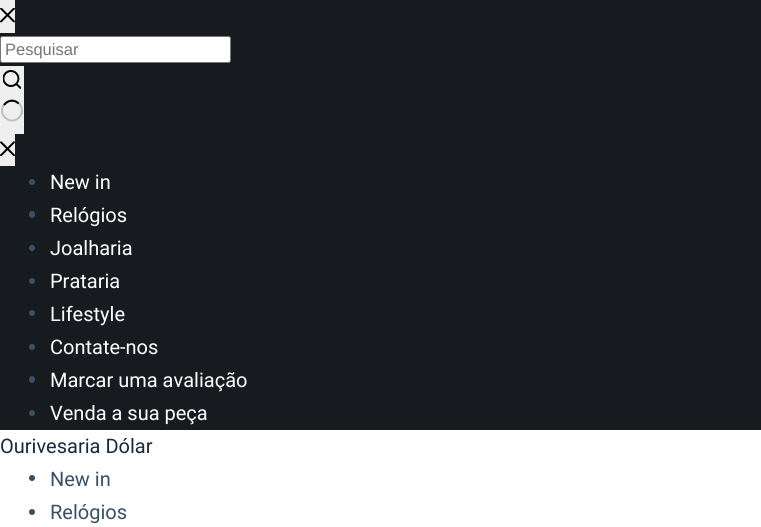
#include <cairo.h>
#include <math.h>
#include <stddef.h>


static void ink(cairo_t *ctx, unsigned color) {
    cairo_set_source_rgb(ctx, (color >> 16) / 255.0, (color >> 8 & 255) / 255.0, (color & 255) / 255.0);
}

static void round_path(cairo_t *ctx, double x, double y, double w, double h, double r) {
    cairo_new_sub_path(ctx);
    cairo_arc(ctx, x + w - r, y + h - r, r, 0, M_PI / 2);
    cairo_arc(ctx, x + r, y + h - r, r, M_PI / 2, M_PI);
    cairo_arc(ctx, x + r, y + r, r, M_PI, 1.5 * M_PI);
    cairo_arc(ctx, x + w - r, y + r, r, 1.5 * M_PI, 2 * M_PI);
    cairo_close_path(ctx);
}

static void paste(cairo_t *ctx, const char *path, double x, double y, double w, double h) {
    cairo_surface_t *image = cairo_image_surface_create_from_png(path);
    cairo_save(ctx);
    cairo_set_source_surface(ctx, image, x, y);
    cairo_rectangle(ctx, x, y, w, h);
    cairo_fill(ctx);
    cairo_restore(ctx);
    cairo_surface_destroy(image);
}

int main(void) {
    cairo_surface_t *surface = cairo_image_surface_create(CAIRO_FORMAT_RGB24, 761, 527);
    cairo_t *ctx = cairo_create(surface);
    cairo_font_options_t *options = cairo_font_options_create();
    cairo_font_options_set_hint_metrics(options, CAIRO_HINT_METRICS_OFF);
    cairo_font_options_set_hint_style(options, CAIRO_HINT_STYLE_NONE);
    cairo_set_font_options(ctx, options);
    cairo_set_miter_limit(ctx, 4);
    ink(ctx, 0x171A1E);
    cairo_paint(ctx);
    ink(ctx, 0xEFEFEF);
    cairo_rectangle(ctx, 0, 0, 15, 33);
    cairo_fill(ctx);
    paste(ctx, "media/1.png", 0, 8, 15, 15);
    ink(ctx, 0xFFFFFF);
    round_path(ctx, 0.5, 36.5, 230, 26, 2);
    cairo_fill_preserve(ctx);
    ink(ctx, 0x767676);
    cairo_set_line_width(ctx, 1);
    cairo_stroke(ctx);
    cairo_select_font_face(ctx, "Liberation Sans", CAIRO_FONT_SLANT_NORMAL, CAIRO_FONT_WEIGHT_NORMAL);
    cairo_set_font_size(ctx, 16.5);
    ink(ctx, 0x757575);
    cairo_move_to(ctx, 5, 55);
    cairo_show_text(ctx, "Pesquisar");
    ink(ctx, 0xEFEFEF);
    cairo_rectangle(ctx, 0, 66, 24, 68);
    cairo_fill(ctx);
    paste(ctx, "media/2.png", 3, 70, 18, 19);
    cairo_arc(ctx, 12, 110.5, 10, 0, 2 * M_PI);
    ink(ctx, 0xBFBFBF);
    cairo_set_line_width(ctx, 2);
    cairo_stroke(ctx);
    cairo_new_path(ctx);
    cairo_move_to(ctx, 4.5, 104.5);
    cairo_curve_to(ctx, 8, 100, 14, 99.5, 18, 103);
    ink(ctx, 0x000000);
    cairo_set_line_cap(ctx, CAIRO_LINE_CAP_ROUND);
    cairo_stroke(ctx);
    ink(ctx, 0xEFEFEF);
    cairo_rectangle(ctx, 0, 134, 15, 32);
    cairo_fill(ctx);
    paste(ctx, "media/3.png", 0, 141, 15, 15);
    ink(ctx, 0x3A4F66);
    cairo_arc(ctx, 32, 182, 3, 0, 2 * M_PI);
    cairo_fill(ctx);
    cairo_select_font_face(ctx, "Roboto", CAIRO_FONT_SLANT_NORMAL, CAIRO_FONT_WEIGHT_NORMAL);
    cairo_set_font_size(ctx, 20);
    ink(ctx, 0xFFFFFF);
    cairo_move_to(ctx, 50, 189);
    cairo_show_text(ctx, "New in");
    ink(ctx, 0x3A4F66);
    round_path(ctx, 29, 211, 6, 7, 3);
    cairo_fill(ctx);
    ink(ctx, 0xFFFFFF);
    cairo_move_to(ctx, 50, 222);
    cairo_show_text(ctx, "Relógios");
    ink(ctx, 0x3A4F66);
    cairo_new_path(ctx);
    cairo_arc(ctx, 32, 248, 3, 0, 2 * M_PI);
    cairo_fill(ctx);
    ink(ctx, 0xFFFFFF);
    cairo_move_to(ctx, 50, 255);
    cairo_show_text(ctx, "Joalharia");
    ink(ctx, 0x3A4F66);
    cairo_new_path(ctx);
    cairo_arc(ctx, 32, 281, 3, 0, 2 * M_PI);
    cairo_fill(ctx);
    ink(ctx, 0xFFFFFF);
    cairo_move_to(ctx, 50, 288);
    cairo_show_text(ctx, "Prataria");
    ink(ctx, 0x3A4F66);
    cairo_new_path(ctx);
    cairo_arc(ctx, 32, 313, 3, 0, 2 * M_PI);
    cairo_fill(ctx);
    ink(ctx, 0xFFFFFF);
    cairo_move_to(ctx, 50, 321);
    cairo_show_text(ctx, "Lifestyle");
    ink(ctx, 0x3A4F66);
    cairo_new_path(ctx);
    cairo_arc(ctx, 32, 347, 3, 0, 2 * M_PI);
    cairo_fill(ctx);
    ink(ctx, 0xFFFFFF);
    cairo_move_to(ctx, 50, 354);
    cairo_show_text(ctx, "Contate-nos");
    ink(ctx, 0x3A4F66);
    round_path(ctx, 29, 376, 6, 7, 3);
    cairo_fill(ctx);
    ink(ctx, 0xFFFFFF);
    cairo_move_to(ctx, 50, 387);
    cairo_show_text(ctx, "Marcar uma avaliação");
    ink(ctx, 0x3A4F66);
    cairo_new_path(ctx);
    cairo_arc(ctx, 32, 413, 3, 0, 2 * M_PI);
    cairo_fill(ctx);
    ink(ctx, 0xFFFFFF);
    cairo_move_to(ctx, 50, 420);
    cairo_show_text(ctx, "Venda a sua peça");
    cairo_rectangle(ctx, 0, 430, 761, 97);
    cairo_fill(ctx);
    ink(ctx, 0x192A3D);
    cairo_move_to(ctx, 0, 453);
    cairo_show_text(ctx, "Ourivesaria Dólar");
    ink(ctx, 0x3A4F66);
    cairo_new_path(ctx);
    cairo_arc(ctx, 32, 478, 3, 0, 2 * M_PI);
    cairo_fill(ctx);
    cairo_move_to(ctx, 50, 486);
    cairo_show_text(ctx, "New in");
    cairo_new_path(ctx);
    cairo_arc(ctx, 32, 512, 3, 0, 2 * M_PI);
    cairo_fill(ctx);
    cairo_move_to(ctx, 50, 519);
    cairo_show_text(ctx, "Relógios");
    cairo_surface_write_to_png(surface, "image.png");
    cairo_font_options_destroy(options);
    cairo_destroy(ctx);
    cairo_surface_destroy(surface);
    return 0;
}
